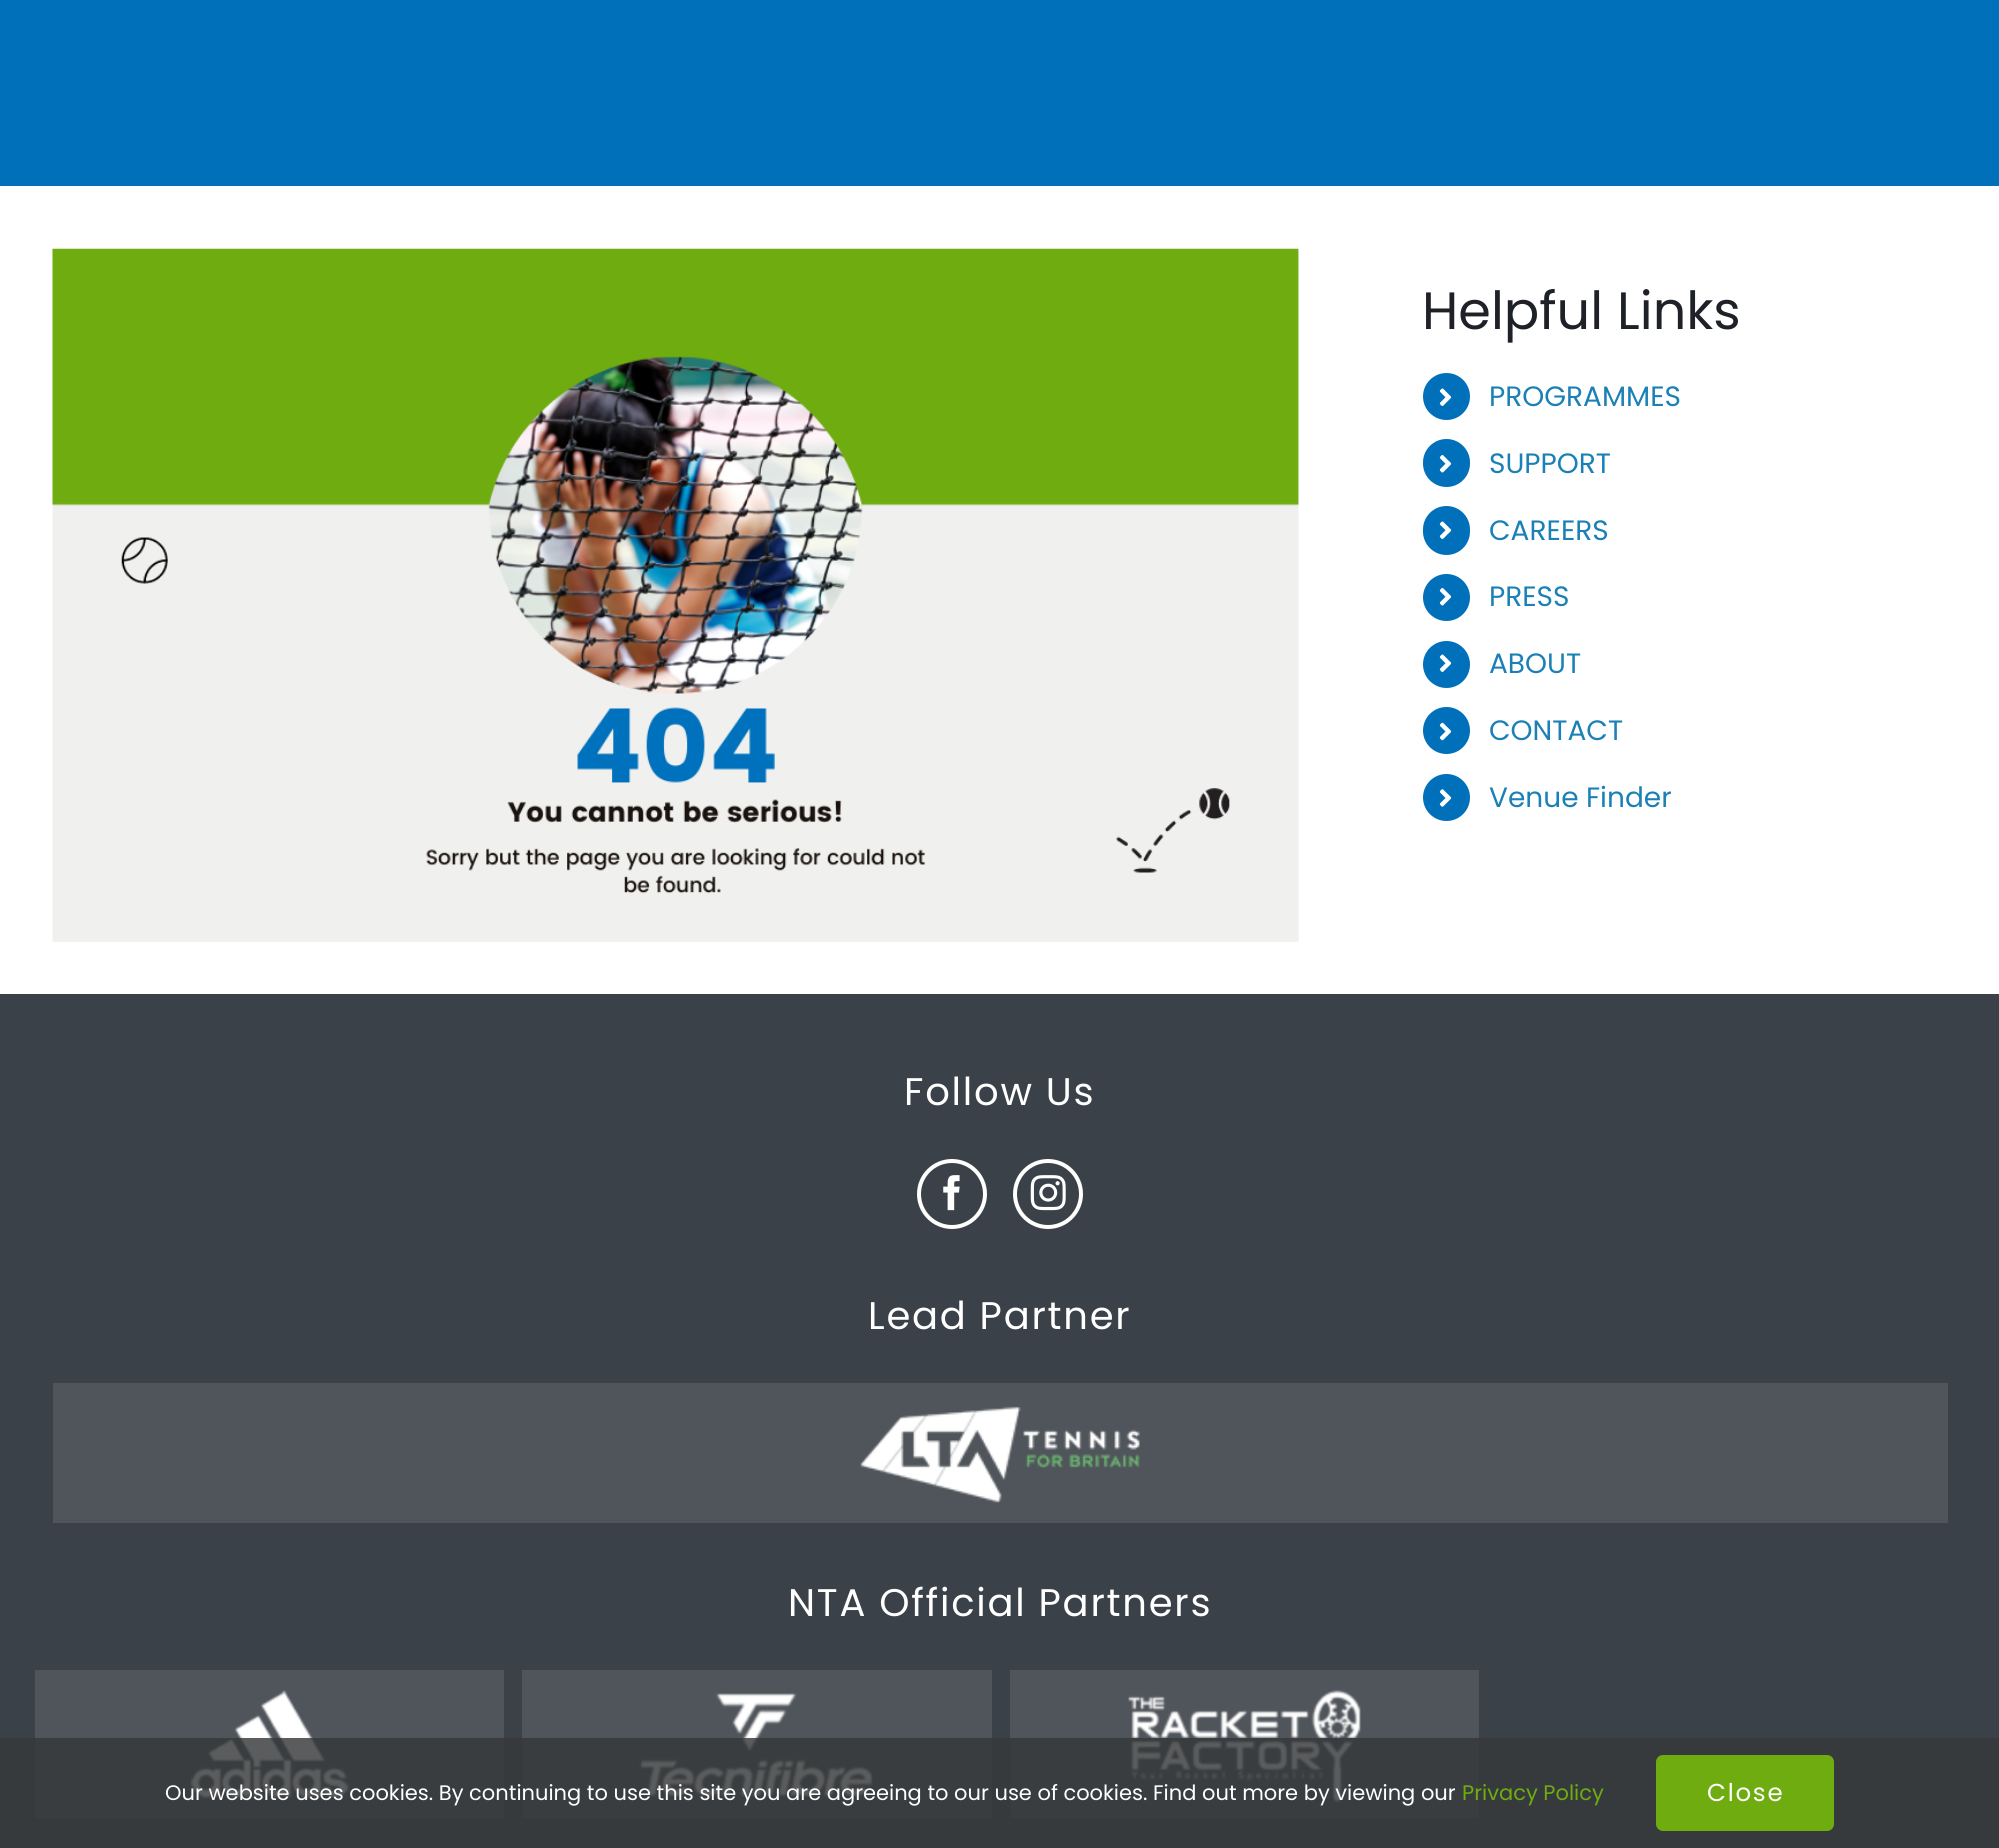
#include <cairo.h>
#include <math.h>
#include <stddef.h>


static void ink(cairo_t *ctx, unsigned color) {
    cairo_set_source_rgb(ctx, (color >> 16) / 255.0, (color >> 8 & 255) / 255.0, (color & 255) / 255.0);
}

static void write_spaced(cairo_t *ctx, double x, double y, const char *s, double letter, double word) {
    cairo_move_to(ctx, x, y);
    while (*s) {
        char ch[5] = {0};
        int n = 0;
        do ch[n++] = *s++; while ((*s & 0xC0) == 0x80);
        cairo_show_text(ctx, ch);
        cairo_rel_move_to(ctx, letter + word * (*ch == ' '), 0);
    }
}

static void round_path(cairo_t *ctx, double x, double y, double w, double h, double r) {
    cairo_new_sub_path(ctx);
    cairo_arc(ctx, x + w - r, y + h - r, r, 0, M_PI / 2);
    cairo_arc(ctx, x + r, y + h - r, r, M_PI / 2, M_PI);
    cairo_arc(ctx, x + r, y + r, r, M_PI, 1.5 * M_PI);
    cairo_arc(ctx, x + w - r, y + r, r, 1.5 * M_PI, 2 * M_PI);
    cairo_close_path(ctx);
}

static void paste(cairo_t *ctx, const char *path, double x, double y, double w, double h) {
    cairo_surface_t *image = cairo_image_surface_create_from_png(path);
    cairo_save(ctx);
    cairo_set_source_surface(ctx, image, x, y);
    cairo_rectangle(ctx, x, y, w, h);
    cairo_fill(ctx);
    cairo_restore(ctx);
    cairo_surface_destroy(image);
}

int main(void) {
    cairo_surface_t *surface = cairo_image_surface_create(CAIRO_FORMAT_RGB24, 1999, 1848);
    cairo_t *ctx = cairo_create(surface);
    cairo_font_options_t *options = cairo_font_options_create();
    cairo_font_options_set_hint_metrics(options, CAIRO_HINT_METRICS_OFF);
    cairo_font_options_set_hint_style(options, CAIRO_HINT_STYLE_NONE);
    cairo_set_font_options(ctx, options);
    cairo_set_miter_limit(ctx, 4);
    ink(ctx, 0xFFFFFF);
    cairo_paint(ctx);
    ink(ctx, 0x0070BB);
    cairo_rectangle(ctx, 0, 0, 1999, 186);
    cairo_fill(ctx);
    paste(ctx, "media/1.png", 52, 248, 1247, 694);
    cairo_select_font_face(ctx, "Poppins", CAIRO_FONT_SLANT_NORMAL, CAIRO_FONT_WEIGHT_NORMAL);
    cairo_set_font_size(ctx, 52.5);
    ink(ctx, 0x1F2129);
    cairo_move_to(ctx, 1422, 329);
    cairo_show_text(ctx, "Helpful Links");
    ink(ctx, 0x0070BB);
    cairo_new_path(ctx);
    cairo_arc(ctx, 1446.5, 396.5, 23.5, 0, 2 * M_PI);
    cairo_fill(ctx);
    paste(ctx, "media/2.png", 1439, 388, 13, 18);
    cairo_set_font_size(ctx, 28);
    ink(ctx, 0x1A80B6);
    cairo_move_to(ctx, 1489, 406);
    cairo_show_text(ctx, "PROGRAMMES");
    ink(ctx, 0x0070BB);
    round_path(ctx, 1423, 439, 47, 48, 23.5);
    cairo_fill(ctx);
    paste(ctx, "media/3.png", 1439, 455, 13, 18);
    ink(ctx, 0x1A80B6);
    cairo_move_to(ctx, 1489, 473);
    cairo_show_text(ctx, "SUPPORT");
    ink(ctx, 0x0070BB);
    round_path(ctx, 1423, 506, 47, 49, 23.5);
    cairo_fill(ctx);
    paste(ctx, "media/2.png", 1439, 521, 13, 18);
    ink(ctx, 0x1A80B6);
    cairo_move_to(ctx, 1489, 540);
    cairo_show_text(ctx, "CAREERS");
    ink(ctx, 0x0070BB);
    cairo_new_path(ctx);
    cairo_arc(ctx, 1446.5, 597.5, 23.5, 0, 2 * M_PI);
    cairo_fill(ctx);
    paste(ctx, "media/3.png", 1439, 588, 13, 18);
    ink(ctx, 0x1A80B6);
    cairo_move_to(ctx, 1489, 606);
    cairo_show_text(ctx, "PRESS");
    ink(ctx, 0x0070BB);
    cairo_new_path(ctx);
    cairo_arc(ctx, 1446.5, 664.5, 23.5, 0, 2 * M_PI);
    cairo_fill(ctx);
    paste(ctx, "media/2.png", 1439, 654, 13, 18);
    ink(ctx, 0x1A80B6);
    cairo_move_to(ctx, 1489, 673);
    cairo_show_text(ctx, "ABOUT");
    ink(ctx, 0x0070BB);
    cairo_new_path(ctx);
    cairo_arc(ctx, 1446.5, 730.5, 23.5, 0, 2 * M_PI);
    cairo_fill(ctx);
    paste(ctx, "media/4.png", 1439, 722, 13, 19);
    ink(ctx, 0x1A80B6);
    cairo_move_to(ctx, 1489, 740);
    cairo_show_text(ctx, "CONTACT");
    ink(ctx, 0x0070BB);
    cairo_new_path(ctx);
    cairo_arc(ctx, 1446.5, 797.5, 23.5, 0, 2 * M_PI);
    cairo_fill(ctx);
    paste(ctx, "media/5.png", 1439, 789, 13, 18);
    ink(ctx, 0x1A80B6);
    cairo_move_to(ctx, 1489, 807);
    cairo_show_text(ctx, "Venue Finder");
    ink(ctx, 0x3A4149);
    cairo_rectangle(ctx, 0, 994, 1999, 854);
    cairo_fill(ctx);
    cairo_set_font_size(ctx, 38.5);
    ink(ctx, 0xFFFFFF);
    write_spaced(ctx, 904, 1105, "Follow Us", 1.75, 0);
    cairo_new_path(ctx);
    cairo_arc(ctx, 952, 1194, 33, 0, 2 * M_PI);
    cairo_set_line_width(ctx, 4);
    cairo_stroke(ctx);
    paste(ctx, "media/6.png", 943, 1175, 17, 36);
    cairo_arc(ctx, 1048, 1194, 33, 0, 2 * M_PI);
    cairo_stroke(ctx);
    paste(ctx, "media/7.png", 1030, 1175, 36, 36);
    write_spaced(ctx, 868, 1329, "Lead Partner", 1.75, 0);
    ink(ctx, 0x50555B);
    cairo_rectangle(ctx, 53, 1383, 1895, 140);
    cairo_fill(ctx);
    paste(ctx, "media/8.png", 860, 1406, 280, 97);
    ink(ctx, 0xFFFFFF);
    write_spaced(ctx, 788, 1616, "NTA Official Partners", 1.75, 0);
    ink(ctx, 0x50555B);
    cairo_rectangle(ctx, 35, 1670, 469, 148);
    cairo_fill(ctx);
    paste(ctx, "media/9.png", 190, 1690, 160, 109);
    cairo_rectangle(ctx, 522, 1670, 470, 148);
    cairo_fill(ctx);
    paste(ctx, "media/10.png", 639, 1693, 234, 104);
    cairo_rectangle(ctx, 1010, 1670, 469, 148);
    cairo_fill(ctx);
    paste(ctx, "media/11.png", 1128, 1690, 233, 112);
    cairo_set_source_rgba(ctx, 0.212, 0.22, 0.224, 0.82);
    cairo_rectangle(ctx, 0, 1738, 1999, 110);
    cairo_fill(ctx);
    cairo_set_font_size(ctx, 21);
    ink(ctx, 0xFFFFFF);
    cairo_move_to(ctx, 165, 1800);
    cairo_show_text(ctx, "Our website uses cookies. By continuing to use this site you are agreeing to our use of cookies. Find out more by viewing our");
    ink(ctx, 0x6FAC10);
    cairo_move_to(ctx, 1462, 1800);
    cairo_show_text(ctx, "Privacy Policy");
    round_path(ctx, 1656, 1755, 178, 76, 7);
    cairo_fill(ctx);
    cairo_set_font_size(ctx, 24.5);
    ink(ctx, 0xFFFFFF);
    write_spaced(ctx, 1707, 1801, "Close", 1.75, 0);
    cairo_surface_write_to_png(surface, "image.png");
    cairo_font_options_destroy(options);
    cairo_destroy(ctx);
    cairo_surface_destroy(surface);
    return 0;
}
